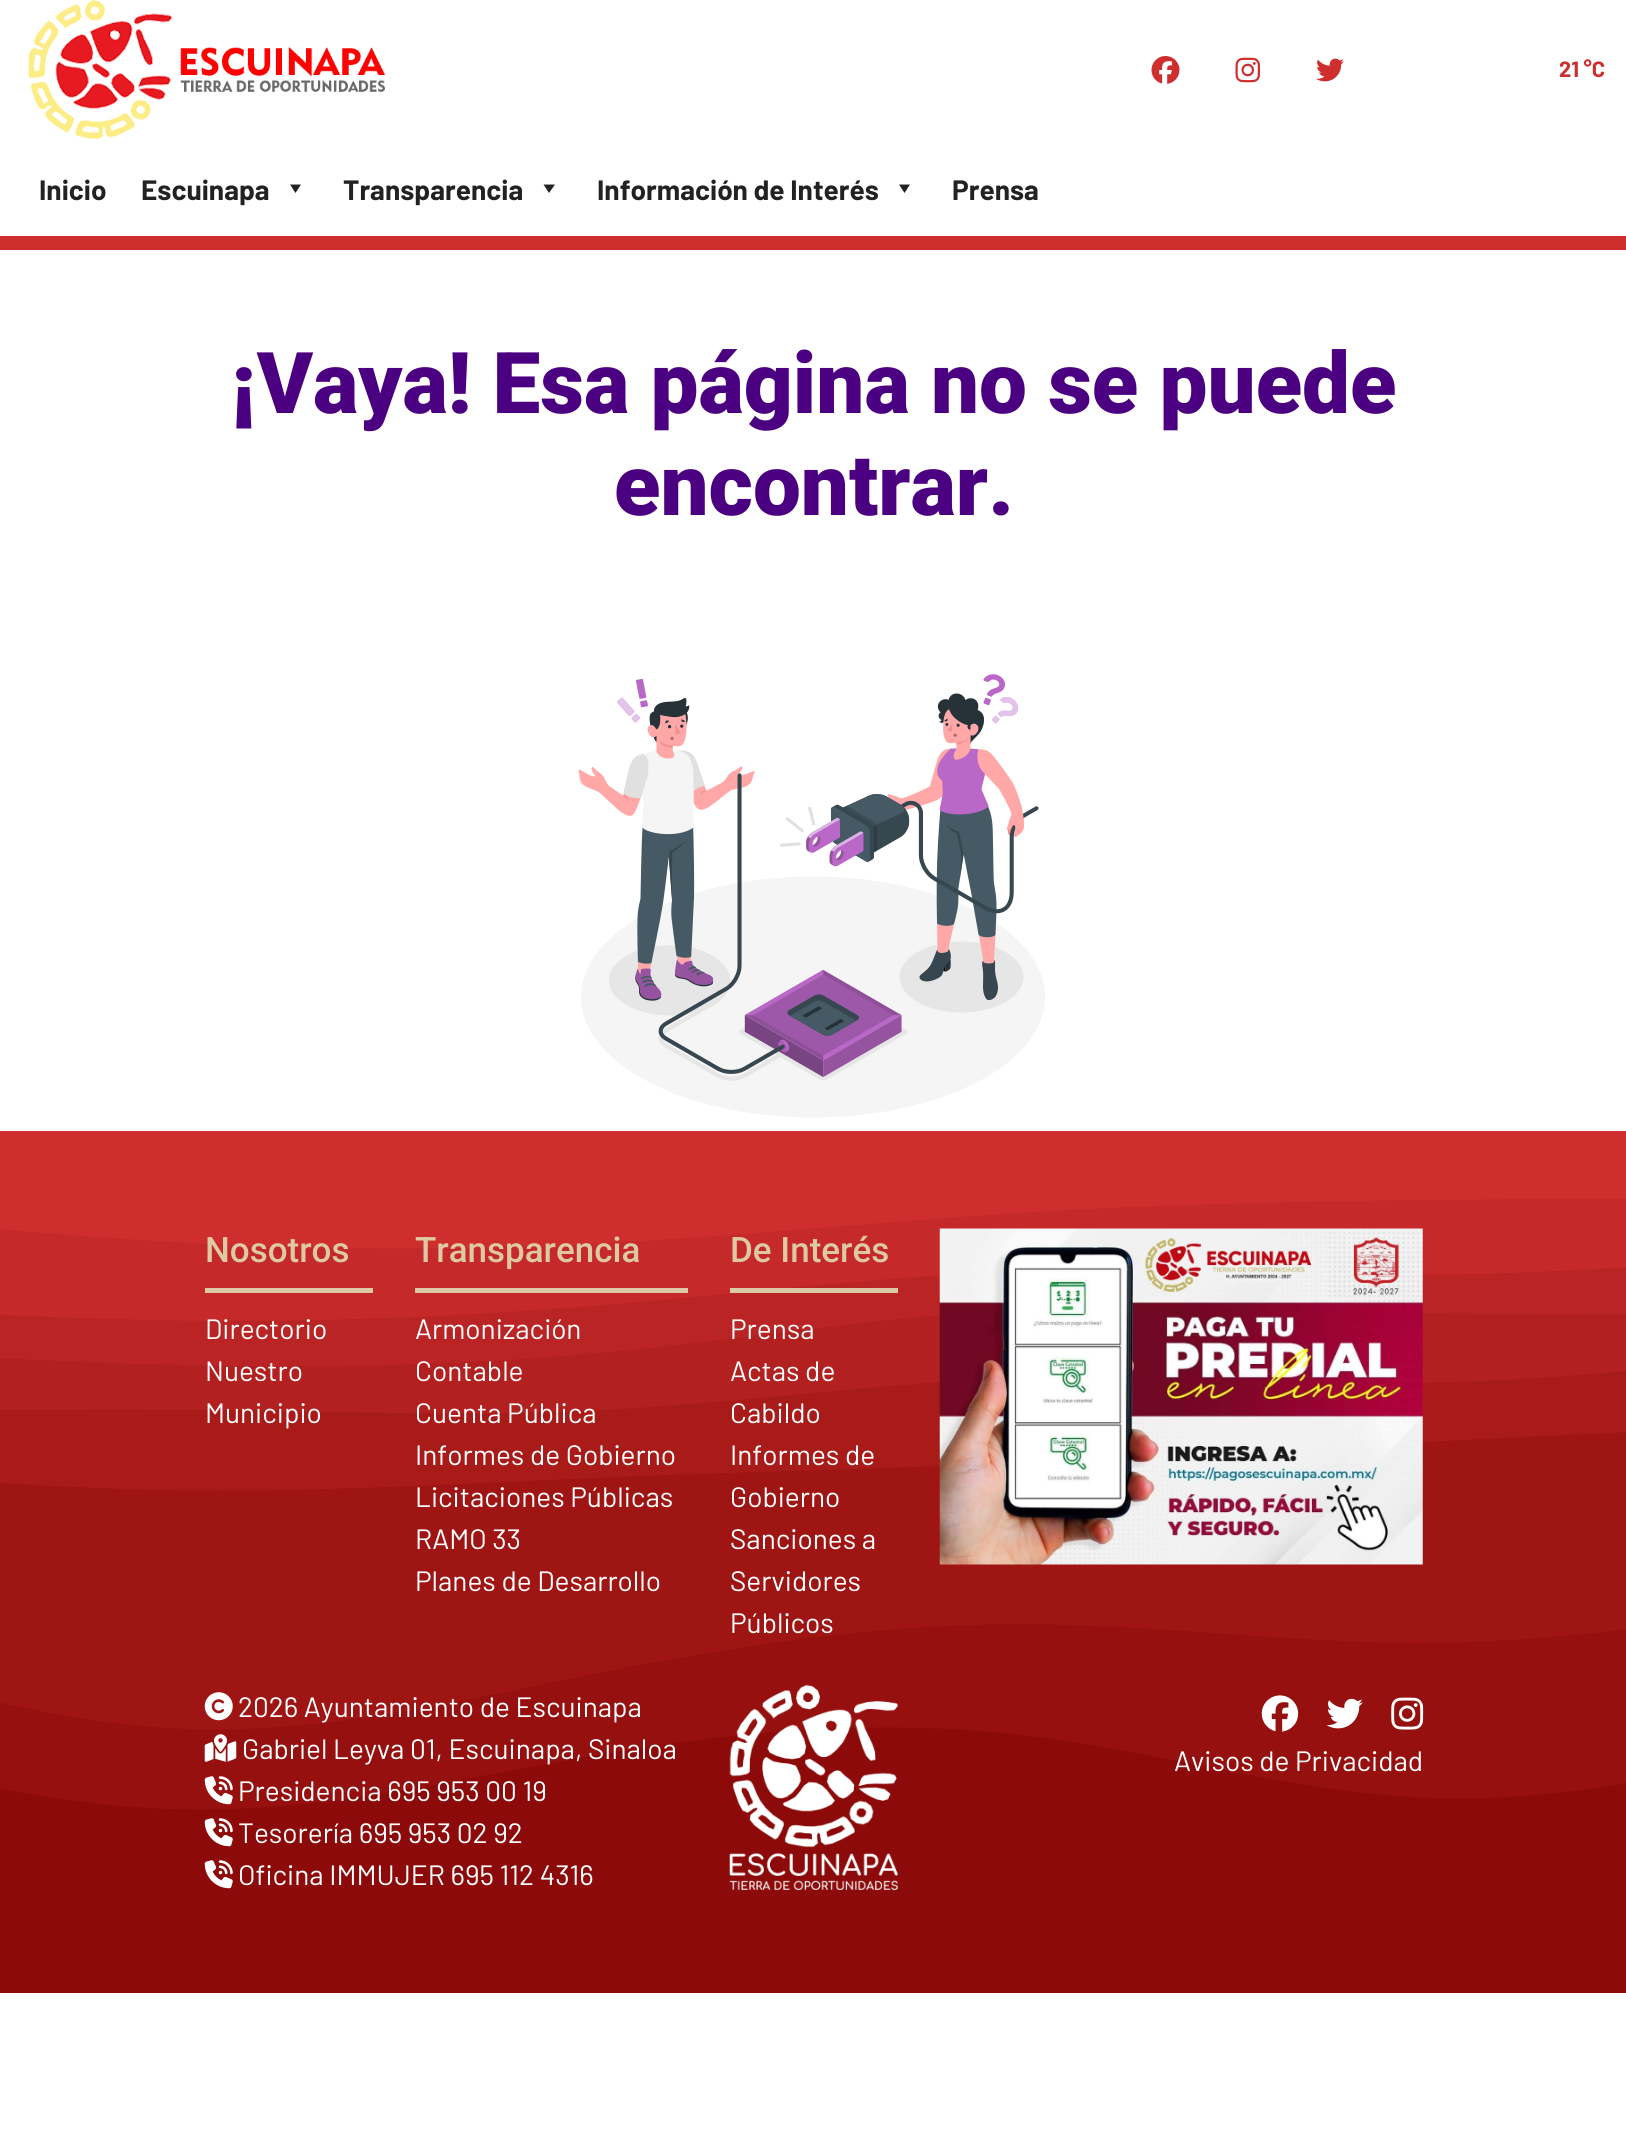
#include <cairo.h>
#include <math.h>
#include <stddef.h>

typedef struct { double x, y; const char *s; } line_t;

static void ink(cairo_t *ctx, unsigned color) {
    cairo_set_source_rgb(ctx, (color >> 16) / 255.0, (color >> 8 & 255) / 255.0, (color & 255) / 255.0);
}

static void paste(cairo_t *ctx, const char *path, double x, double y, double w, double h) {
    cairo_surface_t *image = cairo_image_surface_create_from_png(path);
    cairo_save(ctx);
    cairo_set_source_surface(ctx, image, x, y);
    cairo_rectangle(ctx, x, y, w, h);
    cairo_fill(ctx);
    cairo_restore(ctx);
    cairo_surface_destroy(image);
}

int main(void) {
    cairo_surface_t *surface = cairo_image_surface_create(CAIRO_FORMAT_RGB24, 1626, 2135);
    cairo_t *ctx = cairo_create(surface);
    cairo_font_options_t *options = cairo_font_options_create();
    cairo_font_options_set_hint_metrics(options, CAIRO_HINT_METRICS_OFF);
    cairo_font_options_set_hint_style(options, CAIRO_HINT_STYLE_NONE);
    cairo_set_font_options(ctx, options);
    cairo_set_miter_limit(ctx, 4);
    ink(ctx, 0xFFFFFF);
    cairo_paint(ctx);
    ink(ctx, 0xCF2E2E);
    cairo_rectangle(ctx, 0, 236, 1626, 14);
    cairo_fill(ctx);
    paste(ctx, "media/1.png", 28, 0, 357, 140);
    paste(ctx, "media/2.png", 1151, 56, 29, 28);
    paste(ctx, "media/3.png", 1235, 57, 25, 26);
    paste(ctx, "media/4.png", 1316, 58, 28, 24);
    cairo_select_font_face(ctx, "Barlow", CAIRO_FONT_SLANT_NORMAL, CAIRO_FONT_WEIGHT_BOLD);
    cairo_set_font_size(ctx, 22);
    cairo_move_to(ctx, 1559, 77);
    cairo_show_text(ctx, "21 °C");
    cairo_set_font_size(ctx, 28);
    ink(ctx, 0x222222);
    cairo_move_to(ctx, 39, 200);
    cairo_show_text(ctx, "Inicio");
    cairo_move_to(ctx, 141, 200);
    cairo_show_text(ctx, "Escuinapa");
    cairo_new_path(ctx);
    cairo_move_to(ctx, 301, 184.5);
    cairo_line_to(ctx, 295.5, 193);
    cairo_line_to(ctx, 290, 184.5);
    cairo_close_path(ctx);
    cairo_fill(ctx);
    cairo_move_to(ctx, 343, 200);
    cairo_show_text(ctx, "Transparencia");
    cairo_new_path(ctx);
    cairo_move_to(ctx, 555, 184.5);
    cairo_line_to(ctx, 549, 193);
    cairo_line_to(ctx, 543.5, 184.5);
    cairo_close_path(ctx);
    cairo_fill(ctx);
    cairo_move_to(ctx, 597, 200);
    cairo_show_text(ctx, "Información de Interés");
    cairo_new_path(ctx);
    cairo_move_to(ctx, 910, 184.5);
    cairo_line_to(ctx, 904.5, 193);
    cairo_line_to(ctx, 899, 184.5);
    cairo_close_path(ctx);
    cairo_fill(ctx);
    cairo_move_to(ctx, 952, 200);
    cairo_show_text(ctx, "Prensa");
    cairo_select_font_face(ctx, "Roboto Black", CAIRO_FONT_SLANT_NORMAL, CAIRO_FONT_WEIGHT_NORMAL);
    cairo_set_font_size(ctx, 85.25);
    ink(ctx, 0x4B0082);
    cairo_move_to(ctx, 231, 413);
    cairo_show_text(ctx, "¡Vaya! Esa página no se puede");
    cairo_move_to(ctx, 614, 515);
    cairo_show_text(ctx, "encontrar.");
    paste(ctx, "media/5.png", 578, 674, 467, 444);
    paste(ctx, "media/6.png", 0, 1131, 1626, 862);
    ink(ctx, 0xDDC9A3);
    cairo_rectangle(ctx, 205, 1288, 168, 5);
    cairo_fill(ctx);
    cairo_select_font_face(ctx, "Roboto Medium", CAIRO_FONT_SLANT_NORMAL, CAIRO_FONT_WEIGHT_NORMAL);
    cairo_set_font_size(ctx, 35);
    cairo_move_to(ctx, 205, 1262);
    cairo_show_text(ctx, "Nosotros");
    cairo_select_font_face(ctx, "Barlow", CAIRO_FONT_SLANT_NORMAL, CAIRO_FONT_WEIGHT_NORMAL);
    cairo_set_font_size(ctx, 28);
    ink(ctx, 0xFFFFFF);
    {
        static const line_t items[] = {
            {205, 1339, "Directorio"},
            {205, 1381, "Nuestro"},
            {205, 1423, "Municipio"},
        };
        for (size_t i = 0; i < sizeof items / sizeof *items; i++) {
            cairo_move_to(ctx, items[i].x, items[i].y);
            cairo_show_text(ctx, items[i].s);
        }
    }
    ink(ctx, 0xDDC9A3);
    cairo_rectangle(ctx, 415, 1288, 273, 5);
    cairo_fill(ctx);
    cairo_select_font_face(ctx, "Roboto Medium", CAIRO_FONT_SLANT_NORMAL, CAIRO_FONT_WEIGHT_NORMAL);
    cairo_set_font_size(ctx, 35);
    cairo_move_to(ctx, 415, 1262);
    cairo_show_text(ctx, "Transparencia");
    cairo_select_font_face(ctx, "Barlow", CAIRO_FONT_SLANT_NORMAL, CAIRO_FONT_WEIGHT_NORMAL);
    cairo_set_font_size(ctx, 28);
    ink(ctx, 0xFFFFFF);
    {
        static const line_t items[] = {
            {415, 1339, "Armonización"},
            {415, 1381, "Contable"},
            {415, 1423, "Cuenta Pública"},
            {415, 1465, "Informes de Gobierno"},
            {415, 1507, "Licitaciones Públicas"},
            {415, 1549, "RAMO 33"},
            {415, 1591, "Planes de Desarrollo"},
        };
        for (size_t i = 0; i < sizeof items / sizeof *items; i++) {
            cairo_move_to(ctx, items[i].x, items[i].y);
            cairo_show_text(ctx, items[i].s);
        }
    }
    ink(ctx, 0xDDC9A3);
    cairo_rectangle(ctx, 730, 1288, 168, 5);
    cairo_fill(ctx);
    cairo_select_font_face(ctx, "Roboto Medium", CAIRO_FONT_SLANT_NORMAL, CAIRO_FONT_WEIGHT_NORMAL);
    cairo_set_font_size(ctx, 35);
    cairo_move_to(ctx, 730, 1262);
    cairo_show_text(ctx, "De Interés");
    cairo_select_font_face(ctx, "Barlow", CAIRO_FONT_SLANT_NORMAL, CAIRO_FONT_WEIGHT_NORMAL);
    cairo_set_font_size(ctx, 28);
    ink(ctx, 0xFFFFFF);
    {
        static const line_t items[] = {
            {730, 1339, "Prensa"},
            {730, 1381, "Actas de"},
            {730, 1423, "Cabildo"},
            {730, 1465, "Informes de"},
            {730, 1507, "Gobierno"},
            {730, 1549, "Sanciones a"},
            {730, 1591, "Servidores"},
            {730, 1633, "Públicos"},
        };
        for (size_t i = 0; i < sizeof items / sizeof *items; i++) {
            cairo_move_to(ctx, items[i].x, items[i].y);
            cairo_show_text(ctx, items[i].s);
        }
    }
    paste(ctx, "media/7.png", 939, 1228, 484, 337);
    paste(ctx, "media/8.png", 204, 1692, 29, 29);
    cairo_move_to(ctx, 238, 1717);
    cairo_show_text(ctx, "2026 Ayuntamiento de Escuinapa");
    paste(ctx, "media/9.png", 204, 1734, 33, 28);
    cairo_move_to(ctx, 242, 1759);
    cairo_show_text(ctx, "Gabriel Leyva 01, Escuinapa, Sinaloa");
    paste(ctx, "media/10.png", 204, 1776, 29, 29);
    cairo_move_to(ctx, 238, 1801);
    cairo_show_text(ctx, "Presidencia 695 953 00 19");
    paste(ctx, "media/11.png", 204, 1818, 29, 29);
    cairo_move_to(ctx, 238, 1843);
    cairo_show_text(ctx, "Tesorería 695 953 02 92");
    paste(ctx, "media/11.png", 204, 1860, 29, 29);
    cairo_move_to(ctx, 238, 1885);
    cairo_show_text(ctx, "Oficina IMMUJER 695 112 4316");
    paste(ctx, "media/12.png", 729, 1685, 169, 205);
    paste(ctx, "media/13.png", 1261, 1695, 38, 37);
    paste(ctx, "media/14.png", 1326, 1698, 37, 31);
    paste(ctx, "media/15.png", 1391, 1697, 33, 33);
    cairo_move_to(ctx, 1174, 1771);
    cairo_show_text(ctx, "Avisos de Privacidad");
    cairo_surface_write_to_png(surface, "image.png");
    cairo_font_options_destroy(options);
    cairo_destroy(ctx);
    cairo_surface_destroy(surface);
    return 0;
}
